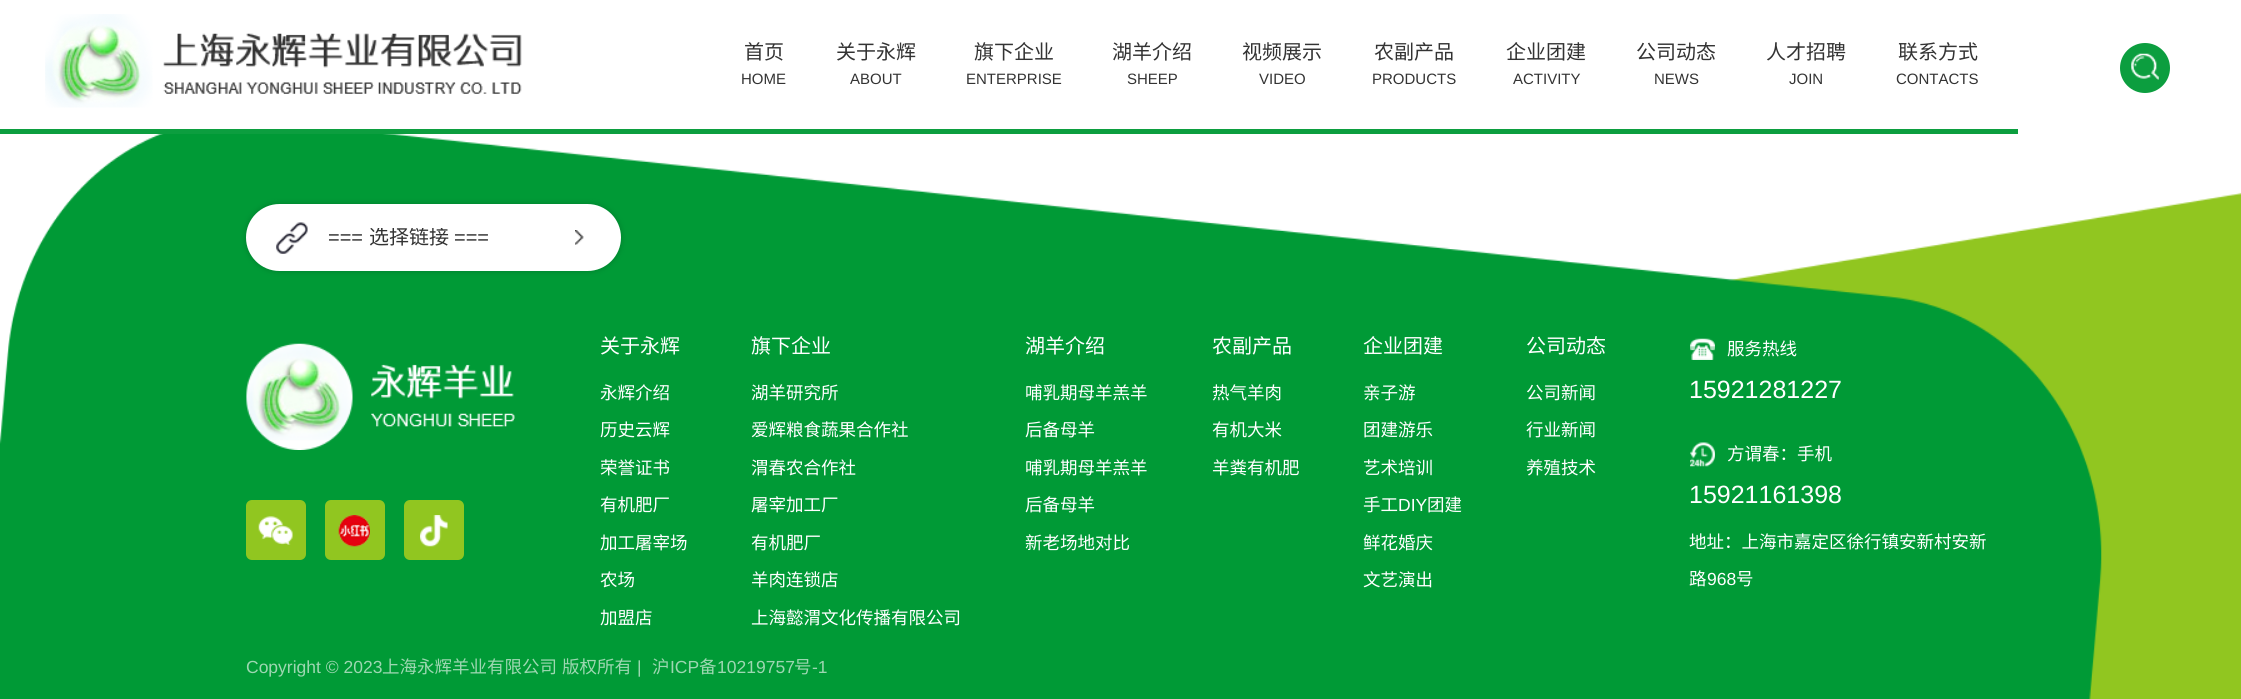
#include <cairo.h>
#include <math.h>
#include <stddef.h>

typedef struct { double x, y; const char *s; } line_t;

static void ink(cairo_t *ctx, unsigned color) {
    cairo_set_source_rgb(ctx, (color >> 16) / 255.0, (color >> 8 & 255) / 255.0, (color & 255) / 255.0);
}

static void round_path(cairo_t *ctx, double x, double y, double w, double h, double r) {
    cairo_new_sub_path(ctx);
    cairo_arc(ctx, x + w - r, y + h - r, r, 0, M_PI / 2);
    cairo_arc(ctx, x + r, y + h - r, r, M_PI / 2, M_PI);
    cairo_arc(ctx, x + r, y + r, r, M_PI, 1.5 * M_PI);
    cairo_arc(ctx, x + w - r, y + r, r, 1.5 * M_PI, 2 * M_PI);
    cairo_close_path(ctx);
}

static void blur_box(cairo_t *ctx, double x, double y, double w, double h, double r, double blur, double alpha) {
    cairo_push_group_with_content(ctx, CAIRO_CONTENT_ALPHA);
    cairo_set_operator(ctx, CAIRO_OPERATOR_SOURCE);
    for (int i = 15; i >= -15 && fmin(w, h) + blur * i / 3 > 0; i -= 2) {
        double e = blur * i / 6;
        cairo_set_source_rgba(ctx, 0, 0, 0, alpha * erfc((i - 1) / 8.5) / 2);
        round_path(ctx, x - e, y - e, w + 2 * e, h + 2 * e, fmax(0, fmin(r + e + blur * .6, fmin(w, h) / 2 + e)));
        cairo_fill(ctx);
    }
    cairo_pattern_t *soft = cairo_pop_group(ctx);
    cairo_mask(ctx, soft);
    cairo_pattern_destroy(soft);
}

static void paste(cairo_t *ctx, const char *path, double x, double y, double w, double h) {
    cairo_surface_t *image = cairo_image_surface_create_from_png(path);
    cairo_save(ctx);
    cairo_set_source_surface(ctx, image, x, y);
    cairo_rectangle(ctx, x, y, w, h);
    cairo_fill(ctx);
    cairo_restore(ctx);
    cairo_surface_destroy(image);
}

int main(void) {
    cairo_surface_t *surface = cairo_image_surface_create(CAIRO_FORMAT_RGB24, 2241, 699);
    cairo_t *ctx = cairo_create(surface);
    cairo_font_options_t *options = cairo_font_options_create();
    cairo_font_options_set_hint_metrics(options, CAIRO_HINT_METRICS_OFF);
    cairo_font_options_set_hint_style(options, CAIRO_HINT_STYLE_NONE);
    cairo_set_font_options(ctx, options);
    cairo_set_miter_limit(ctx, 4);
    ink(ctx, 0xFFFFFF);
    cairo_paint(ctx);
    ink(ctx, 0x0C9E3F);
    cairo_rectangle(ctx, 0, 129, 2018, 5);
    cairo_fill(ctx);
    paste(ctx, "media/1.png", 45, 14, 477, 94);
    cairo_select_font_face(ctx, "Noto Sans CJK SC", CAIRO_FONT_SLANT_NORMAL, CAIRO_FONT_WEIGHT_NORMAL);
    cairo_set_font_size(ctx, 20);
    ink(ctx, 0x333333);
    cairo_move_to(ctx, 744, 59);
    cairo_show_text(ctx, "首页");
    cairo_select_font_face(ctx, "Liberation Sans", CAIRO_FONT_SLANT_NORMAL, CAIRO_FONT_WEIGHT_NORMAL);
    cairo_set_font_size(ctx, 15);
    cairo_move_to(ctx, 741, 84);
    cairo_show_text(ctx, "HOME");
    cairo_select_font_face(ctx, "Noto Sans CJK SC", CAIRO_FONT_SLANT_NORMAL, CAIRO_FONT_WEIGHT_NORMAL);
    cairo_set_font_size(ctx, 20);
    cairo_move_to(ctx, 836, 59);
    cairo_show_text(ctx, "关于永辉");
    cairo_select_font_face(ctx, "Liberation Sans", CAIRO_FONT_SLANT_NORMAL, CAIRO_FONT_WEIGHT_NORMAL);
    cairo_set_font_size(ctx, 15);
    cairo_move_to(ctx, 850, 84);
    cairo_show_text(ctx, "ABOUT");
    cairo_select_font_face(ctx, "Noto Sans CJK SC", CAIRO_FONT_SLANT_NORMAL, CAIRO_FONT_WEIGHT_NORMAL);
    cairo_set_font_size(ctx, 20);
    cairo_move_to(ctx, 974, 59);
    cairo_show_text(ctx, "旗下企业");
    cairo_select_font_face(ctx, "Liberation Sans", CAIRO_FONT_SLANT_NORMAL, CAIRO_FONT_WEIGHT_NORMAL);
    cairo_set_font_size(ctx, 15);
    cairo_move_to(ctx, 966, 84);
    cairo_show_text(ctx, "ENTERPRISE");
    cairo_select_font_face(ctx, "Noto Sans CJK SC", CAIRO_FONT_SLANT_NORMAL, CAIRO_FONT_WEIGHT_NORMAL);
    cairo_set_font_size(ctx, 20);
    cairo_move_to(ctx, 1112, 59);
    cairo_show_text(ctx, "湖羊介绍");
    cairo_select_font_face(ctx, "Liberation Sans", CAIRO_FONT_SLANT_NORMAL, CAIRO_FONT_WEIGHT_NORMAL);
    cairo_set_font_size(ctx, 15);
    cairo_move_to(ctx, 1127, 84);
    cairo_show_text(ctx, "SHEEP");
    cairo_select_font_face(ctx, "Noto Sans CJK SC", CAIRO_FONT_SLANT_NORMAL, CAIRO_FONT_WEIGHT_NORMAL);
    cairo_set_font_size(ctx, 20);
    cairo_move_to(ctx, 1242, 59);
    cairo_show_text(ctx, "视频展示");
    cairo_select_font_face(ctx, "Liberation Sans", CAIRO_FONT_SLANT_NORMAL, CAIRO_FONT_WEIGHT_NORMAL);
    cairo_set_font_size(ctx, 15);
    cairo_move_to(ctx, 1259, 84);
    cairo_show_text(ctx, "VIDEO");
    cairo_select_font_face(ctx, "Noto Sans CJK SC", CAIRO_FONT_SLANT_NORMAL, CAIRO_FONT_WEIGHT_NORMAL);
    cairo_set_font_size(ctx, 20);
    cairo_move_to(ctx, 1374, 59);
    cairo_show_text(ctx, "农副产品");
    cairo_select_font_face(ctx, "Liberation Sans", CAIRO_FONT_SLANT_NORMAL, CAIRO_FONT_WEIGHT_NORMAL);
    cairo_set_font_size(ctx, 15);
    cairo_move_to(ctx, 1372, 84);
    cairo_show_text(ctx, "PRODUCTS");
    cairo_select_font_face(ctx, "Noto Sans CJK SC", CAIRO_FONT_SLANT_NORMAL, CAIRO_FONT_WEIGHT_NORMAL);
    cairo_set_font_size(ctx, 20);
    cairo_move_to(ctx, 1506, 59);
    cairo_show_text(ctx, "企业团建");
    cairo_select_font_face(ctx, "Liberation Sans", CAIRO_FONT_SLANT_NORMAL, CAIRO_FONT_WEIGHT_NORMAL);
    cairo_set_font_size(ctx, 15);
    cairo_move_to(ctx, 1513, 84);
    cairo_show_text(ctx, "ACTIVITY");
    cairo_select_font_face(ctx, "Noto Sans CJK SC", CAIRO_FONT_SLANT_NORMAL, CAIRO_FONT_WEIGHT_NORMAL);
    cairo_set_font_size(ctx, 20);
    cairo_move_to(ctx, 1636, 59);
    cairo_show_text(ctx, "公司动态");
    cairo_select_font_face(ctx, "Liberation Sans", CAIRO_FONT_SLANT_NORMAL, CAIRO_FONT_WEIGHT_NORMAL);
    cairo_set_font_size(ctx, 15);
    cairo_move_to(ctx, 1654, 84);
    cairo_show_text(ctx, "NEWS");
    cairo_select_font_face(ctx, "Noto Sans CJK SC", CAIRO_FONT_SLANT_NORMAL, CAIRO_FONT_WEIGHT_NORMAL);
    cairo_set_font_size(ctx, 20);
    cairo_move_to(ctx, 1766, 59);
    cairo_show_text(ctx, "人才招聘");
    cairo_select_font_face(ctx, "Liberation Sans", CAIRO_FONT_SLANT_NORMAL, CAIRO_FONT_WEIGHT_NORMAL);
    cairo_set_font_size(ctx, 15);
    cairo_move_to(ctx, 1789, 84);
    cairo_show_text(ctx, "JOIN");
    cairo_select_font_face(ctx, "Noto Sans CJK SC", CAIRO_FONT_SLANT_NORMAL, CAIRO_FONT_WEIGHT_NORMAL);
    cairo_set_font_size(ctx, 20);
    cairo_move_to(ctx, 1898, 59);
    cairo_show_text(ctx, "联系方式");
    cairo_select_font_face(ctx, "Liberation Sans", CAIRO_FONT_SLANT_NORMAL, CAIRO_FONT_WEIGHT_NORMAL);
    cairo_set_font_size(ctx, 15);
    cairo_move_to(ctx, 1896, 84);
    cairo_show_text(ctx, "CONTACTS");
    ink(ctx, 0x0C9E3F);
    cairo_new_path(ctx);
    cairo_arc(ctx, 2145, 68, 25, 0, 2 * M_PI);
    cairo_fill(ctx);
    paste(ctx, "media/2.png", 2131, 53, 28, 27);
    paste(ctx, "media/3.png", 0, 134, 2241, 565);
    ink(ctx, 0x000000);
    blur_box(ctx, 246, 204, 375, 67, 33.5, 3, 0.2);
    ink(ctx, 0xFFFFFF);
    round_path(ctx, 246, 204, 375, 67, 33.5);
    cairo_fill(ctx);
    paste(ctx, "media/4.png", 276, 222, 308, 32);
    cairo_set_font_size(ctx, 20);
    ink(ctx, 0x333333);
    cairo_move_to(ctx, 328, 244);
    cairo_show_text(ctx, "===");
    cairo_save(ctx);
    cairo_rectangle(ctx, 329, 228, 247, 21);
    cairo_clip(ctx);
    cairo_select_font_face(ctx, "Noto Sans CJK SC", CAIRO_FONT_SLANT_NORMAL, CAIRO_FONT_WEIGHT_NORMAL);
    cairo_move_to(ctx, 369, 244);
    cairo_show_text(ctx, "选择链接");
    cairo_restore(ctx);
    cairo_move_to(ctx, 454, 244);
    cairo_show_text(ctx, "===");
    paste(ctx, "media/5.png", 246, 343, 269, 107);
    ink(ctx, 0x91C620);
    round_path(ctx, 246, 500, 60, 60, 6);
    cairo_fill(ctx);
    paste(ctx, "media/6.png", 258, 516, 35, 29);
    round_path(ctx, 325, 500, 60, 60, 6);
    cairo_fill(ctx);
    paste(ctx, "media/7.png", 338, 515, 32, 32);
    round_path(ctx, 404, 500, 60, 60, 6);
    cairo_fill(ctx);
    paste(ctx, "media/8.png", 420, 515, 28, 32);
    cairo_select_font_face(ctx, "Noto Sans CJK SC", CAIRO_FONT_SLANT_NORMAL, CAIRO_FONT_WEIGHT_NORMAL);
    ink(ctx, 0xFFFFFF);
    cairo_move_to(ctx, 600, 353);
    cairo_show_text(ctx, "关于永辉");
    cairo_set_font_size(ctx, 17.5);
    {
        static const line_t items[] = {
            {600, 399, "永辉介绍"},
            {600, 436, "历史云辉"},
            {600, 474, "荣誉证书"},
            {600, 511, "有机肥厂"},
            {600, 549, "加工屠宰场"},
            {600, 586, "农场"},
            {600, 624, "加盟店"},
        };
        for (size_t i = 0; i < sizeof items / sizeof *items; i++) {
            cairo_move_to(ctx, items[i].x, items[i].y);
            cairo_show_text(ctx, items[i].s);
        }
    }
    cairo_set_font_size(ctx, 20);
    cairo_move_to(ctx, 751, 353);
    cairo_show_text(ctx, "旗下企业");
    cairo_set_font_size(ctx, 17.5);
    {
        static const line_t items[] = {
            {751, 399, "湖羊研究所"},
            {751, 436, "爱辉粮食蔬果合作社"},
            {751, 474, "渭春农合作社"},
            {751, 511, "屠宰加工厂"},
            {751, 549, "有机肥厂"},
            {751, 586, "羊肉连锁店"},
            {751, 624, "上海懿渭文化传播有限公司"},
        };
        for (size_t i = 0; i < sizeof items / sizeof *items; i++) {
            cairo_move_to(ctx, items[i].x, items[i].y);
            cairo_show_text(ctx, items[i].s);
        }
    }
    cairo_set_font_size(ctx, 20);
    cairo_move_to(ctx, 1025, 353);
    cairo_show_text(ctx, "湖羊介绍");
    cairo_set_font_size(ctx, 17.5);
    {
        static const line_t items[] = {
            {1025, 399, "哺乳期母羊羔羊"},
            {1025, 436, "后备母羊"},
            {1025, 474, "哺乳期母羊羔羊"},
            {1025, 511, "后备母羊"},
            {1025, 549, "新老场地对比"},
        };
        for (size_t i = 0; i < sizeof items / sizeof *items; i++) {
            cairo_move_to(ctx, items[i].x, items[i].y);
            cairo_show_text(ctx, items[i].s);
        }
    }
    cairo_set_font_size(ctx, 20);
    cairo_move_to(ctx, 1212, 353);
    cairo_show_text(ctx, "农副产品");
    cairo_set_font_size(ctx, 17.5);
    {
        static const line_t items[] = {
            {1212, 399, "热气羊肉"},
            {1212, 436, "有机大米"},
            {1212, 474, "羊粪有机肥"},
        };
        for (size_t i = 0; i < sizeof items / sizeof *items; i++) {
            cairo_move_to(ctx, items[i].x, items[i].y);
            cairo_show_text(ctx, items[i].s);
        }
    }
    cairo_set_font_size(ctx, 20);
    cairo_move_to(ctx, 1363, 353);
    cairo_show_text(ctx, "企业团建");
    cairo_set_font_size(ctx, 17.5);
    {
        static const line_t items[] = {
            {1363, 399, "亲子游"},
            {1363, 436, "团建游乐"},
            {1363, 474, "艺术培训"},
            {1363, 511, "手工"},
        };
        for (size_t i = 0; i < sizeof items / sizeof *items; i++) {
            cairo_move_to(ctx, items[i].x, items[i].y);
            cairo_show_text(ctx, items[i].s);
        }
    }
    cairo_select_font_face(ctx, "Liberation Sans", CAIRO_FONT_SLANT_NORMAL, CAIRO_FONT_WEIGHT_NORMAL);
    cairo_move_to(ctx, 1398, 511);
    cairo_show_text(ctx, "DIY");
    cairo_select_font_face(ctx, "Noto Sans CJK SC", CAIRO_FONT_SLANT_NORMAL, CAIRO_FONT_WEIGHT_NORMAL);
    {
        static const line_t items[] = {
            {1427, 511, "团建"},
            {1363, 549, "鲜花婚庆"},
            {1363, 586, "文艺演出"},
        };
        for (size_t i = 0; i < sizeof items / sizeof *items; i++) {
            cairo_move_to(ctx, items[i].x, items[i].y);
            cairo_show_text(ctx, items[i].s);
        }
    }
    cairo_set_font_size(ctx, 20);
    cairo_move_to(ctx, 1526, 353);
    cairo_show_text(ctx, "公司动态");
    cairo_set_font_size(ctx, 17.5);
    {
        static const line_t items[] = {
            {1526, 399, "公司新闻"},
            {1526, 436, "行业新闻"},
            {1526, 474, "养殖技术"},
        };
        for (size_t i = 0; i < sizeof items / sizeof *items; i++) {
            cairo_move_to(ctx, items[i].x, items[i].y);
            cairo_show_text(ctx, items[i].s);
        }
    }
    paste(ctx, "media/9.png", 1690, 338, 25, 22);
    cairo_move_to(ctx, 1727, 355);
    cairo_show_text(ctx, "服务热线");
    cairo_select_font_face(ctx, "Liberation Sans", CAIRO_FONT_SLANT_NORMAL, CAIRO_FONT_WEIGHT_NORMAL);
    cairo_set_font_size(ctx, 25);
    cairo_move_to(ctx, 1689, 398);
    cairo_show_text(ctx, "15921281227");
    paste(ctx, "media/10.png", 1690, 442, 25, 25);
    cairo_select_font_face(ctx, "Noto Sans CJK SC", CAIRO_FONT_SLANT_NORMAL, CAIRO_FONT_WEIGHT_NORMAL);
    cairo_set_font_size(ctx, 17.5);
    cairo_move_to(ctx, 1727, 460);
    cairo_show_text(ctx, "方谓春：手机");
    cairo_select_font_face(ctx, "Liberation Sans", CAIRO_FONT_SLANT_NORMAL, CAIRO_FONT_WEIGHT_NORMAL);
    cairo_set_font_size(ctx, 25);
    cairo_move_to(ctx, 1689, 503);
    cairo_show_text(ctx, "15921161398");
    cairo_select_font_face(ctx, "Noto Sans CJK SC", CAIRO_FONT_SLANT_NORMAL, CAIRO_FONT_WEIGHT_NORMAL);
    cairo_set_font_size(ctx, 17.5);
    cairo_move_to(ctx, 1689, 548);
    cairo_show_text(ctx, "地址：上海市嘉定区徐行镇安新村安新");
    cairo_move_to(ctx, 1689, 585);
    cairo_show_text(ctx, "路");
    cairo_select_font_face(ctx, "Liberation Sans", CAIRO_FONT_SLANT_NORMAL, CAIRO_FONT_WEIGHT_NORMAL);
    cairo_move_to(ctx, 1707, 585);
    cairo_show_text(ctx, "968");
    cairo_select_font_face(ctx, "Noto Sans CJK SC", CAIRO_FONT_SLANT_NORMAL, CAIRO_FONT_WEIGHT_NORMAL);
    cairo_move_to(ctx, 1736, 585);
    cairo_show_text(ctx, "号");
    cairo_select_font_face(ctx, "Liberation Sans", CAIRO_FONT_SLANT_NORMAL, CAIRO_FONT_WEIGHT_NORMAL);
    ink(ctx, 0x9DD7B1);
    cairo_move_to(ctx, 246, 673);
    cairo_show_text(ctx, "Copyright © 2023");
    cairo_select_font_face(ctx, "Noto Sans CJK SC", CAIRO_FONT_SLANT_NORMAL, CAIRO_FONT_WEIGHT_NORMAL);
    cairo_move_to(ctx, 382, 673);
    cairo_show_text(ctx, "上海永辉羊业有限公司");
    cairo_move_to(ctx, 562, 673);
    cairo_show_text(ctx, "版权所有");
    cairo_select_font_face(ctx, "Liberation Sans", CAIRO_FONT_SLANT_NORMAL, CAIRO_FONT_WEIGHT_NORMAL);
    cairo_move_to(ctx, 637, 673);
    cairo_show_text(ctx, "|");
    cairo_select_font_face(ctx, "Noto Sans CJK SC", CAIRO_FONT_SLANT_NORMAL, CAIRO_FONT_WEIGHT_NORMAL);
    cairo_move_to(ctx, 652, 673);
    cairo_show_text(ctx, "沪");
    cairo_select_font_face(ctx, "Liberation Sans", CAIRO_FONT_SLANT_NORMAL, CAIRO_FONT_WEIGHT_NORMAL);
    cairo_move_to(ctx, 670, 673);
    cairo_show_text(ctx, "ICP");
    cairo_select_font_face(ctx, "Noto Sans CJK SC", CAIRO_FONT_SLANT_NORMAL, CAIRO_FONT_WEIGHT_NORMAL);
    cairo_move_to(ctx, 699, 673);
    cairo_show_text(ctx, "备");
    cairo_select_font_face(ctx, "Liberation Sans", CAIRO_FONT_SLANT_NORMAL, CAIRO_FONT_WEIGHT_NORMAL);
    cairo_move_to(ctx, 717, 673);
    cairo_show_text(ctx, "10219757");
    cairo_select_font_face(ctx, "Noto Sans CJK SC", CAIRO_FONT_SLANT_NORMAL, CAIRO_FONT_WEIGHT_NORMAL);
    cairo_move_to(ctx, 794, 673);
    cairo_show_text(ctx, "号");
    cairo_select_font_face(ctx, "Liberation Sans", CAIRO_FONT_SLANT_NORMAL, CAIRO_FONT_WEIGHT_NORMAL);
    cairo_move_to(ctx, 812, 673);
    cairo_show_text(ctx, "-1");
    cairo_surface_write_to_png(surface, "image.png");
    cairo_font_options_destroy(options);
    cairo_destroy(ctx);
    cairo_surface_destroy(surface);
    return 0;
}
